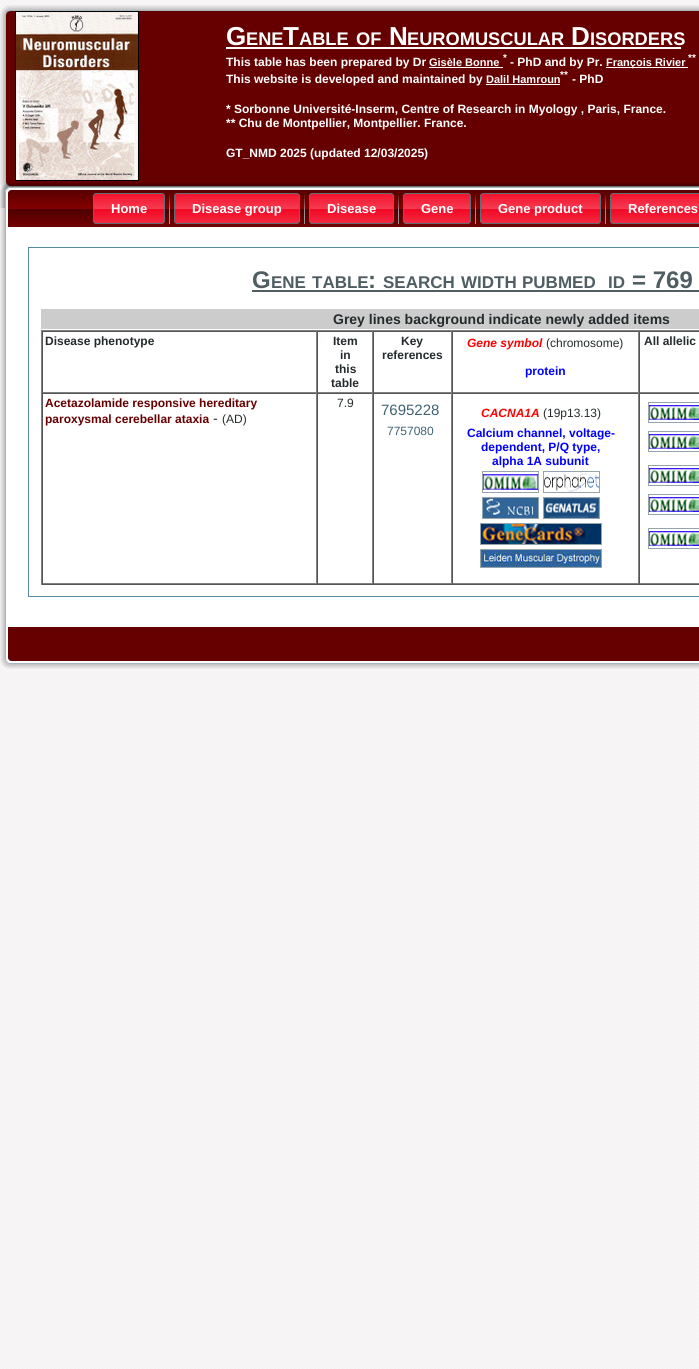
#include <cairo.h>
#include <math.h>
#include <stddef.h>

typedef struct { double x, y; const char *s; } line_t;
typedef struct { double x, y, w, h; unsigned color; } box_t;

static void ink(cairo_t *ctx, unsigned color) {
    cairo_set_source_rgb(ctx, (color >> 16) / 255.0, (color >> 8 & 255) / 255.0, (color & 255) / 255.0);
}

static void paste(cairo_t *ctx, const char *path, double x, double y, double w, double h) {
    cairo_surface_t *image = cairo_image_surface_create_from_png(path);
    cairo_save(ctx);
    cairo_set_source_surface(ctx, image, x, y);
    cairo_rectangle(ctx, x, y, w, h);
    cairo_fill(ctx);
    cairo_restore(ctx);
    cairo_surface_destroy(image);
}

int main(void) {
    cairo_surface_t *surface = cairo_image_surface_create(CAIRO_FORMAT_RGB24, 699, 1369);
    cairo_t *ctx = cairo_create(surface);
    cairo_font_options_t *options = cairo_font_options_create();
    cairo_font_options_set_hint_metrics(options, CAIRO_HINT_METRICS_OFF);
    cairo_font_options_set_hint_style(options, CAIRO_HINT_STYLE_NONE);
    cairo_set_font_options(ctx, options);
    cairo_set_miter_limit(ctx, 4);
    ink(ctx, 0xFFFFFF);
    cairo_paint(ctx);
    paste(ctx, "media/1.png", 0, 0, 699, 1369);
    paste(ctx, "media/2.png", 0, 5, 699, 186);
    paste(ctx, "media/3.png", 15, 11, 124, 170);
    cairo_select_font_face(ctx, "Liberation Sans", CAIRO_FONT_SLANT_NORMAL, CAIRO_FONT_WEIGHT_BOLD);
    cairo_set_font_size(ctx, 26);
    ink(ctx, 0xFFFFFF);
    cairo_move_to(ctx, 226, 45);
    cairo_show_text(ctx, "G");
    cairo_set_font_size(ctx, 18.25);
    cairo_move_to(ctx, 246, 45);
    cairo_show_text(ctx, "ENE");
    cairo_set_font_size(ctx, 26);
    cairo_move_to(ctx, 283, 45);
    cairo_show_text(ctx, "T");
    cairo_set_font_size(ctx, 18.25);
    cairo_move_to(ctx, 299, 45);
    cairo_show_text(ctx, "ABLE");
    cairo_move_to(ctx, 356, 45);
    cairo_show_text(ctx, "OF");
    cairo_rectangle(ctx, 226, 47, 455, 2);
    cairo_fill(ctx);
    cairo_set_font_size(ctx, 26);
    cairo_move_to(ctx, 389, 45);
    cairo_show_text(ctx, "N");
    cairo_set_font_size(ctx, 18.25);
    cairo_move_to(ctx, 407, 45);
    cairo_show_text(ctx, "EUROMUSCULAR");
    cairo_set_font_size(ctx, 26);
    cairo_move_to(ctx, 571, 45);
    cairo_show_text(ctx, "D");
    cairo_set_font_size(ctx, 18.25);
    cairo_move_to(ctx, 590, 45);
    cairo_show_text(ctx, "ISORDERS");
    cairo_set_font_size(ctx, 10);
    cairo_move_to(ctx, 503, 61);
    cairo_show_text(ctx, "*");
    cairo_move_to(ctx, 688, 61);
    cairo_show_text(ctx, "**");
    cairo_set_font_size(ctx, 12);
    cairo_move_to(ctx, 226, 66);
    cairo_show_text(ctx, "This table has been prepared by Dr");
    cairo_set_font_size(ctx, 11);
    cairo_move_to(ctx, 429, 66);
    cairo_show_text(ctx, "Gisèle Bonne");
    cairo_rectangle(ctx, 429, 67, 74, 1);
    cairo_fill(ctx);
    cairo_set_font_size(ctx, 12);
    cairo_move_to(ctx, 510, 66);
    cairo_show_text(ctx, "- PhD and by Pr.");
    cairo_rectangle(ctx, 606, 67, 82, 1);
    cairo_fill(ctx);
    cairo_set_font_size(ctx, 11);
    cairo_move_to(ctx, 606, 66);
    cairo_show_text(ctx, "François Rivier");
    cairo_set_font_size(ctx, 10);
    cairo_move_to(ctx, 560, 78);
    cairo_show_text(ctx, "**");
    cairo_set_font_size(ctx, 12);
    cairo_move_to(ctx, 226, 83);
    cairo_show_text(ctx, "This website is developed and maintained by");
    cairo_set_font_size(ctx, 11);
    cairo_move_to(ctx, 486, 83);
    cairo_show_text(ctx, "Dalil Hamroun");
    cairo_rectangle(ctx, 486, 84, 74, 1);
    cairo_fill(ctx);
    cairo_set_font_size(ctx, 12);
    {
        static const line_t items[] = {
            {572, 83, "- PhD"},
            {226, 113, "* Sorbonne Université-Inserm, Centre of Research in Myology , Paris, France."},
            {226, 127, "** Chu de Montpellier, Montpellier. France."},
            {226, 157, "GT_NMD 2025 (updated 12/03/2025)"},
        };
        for (size_t i = 0; i < sizeof items / sizeof *items; i++) {
            cairo_move_to(ctx, items[i].x, items[i].y);
            cairo_show_text(ctx, items[i].s);
        }
    }
    paste(ctx, "media/4.png", 0, 183, 699, 486);
    paste(ctx, "media/5.png", 0, 183, 699, 25);
    paste(ctx, "media/15.png", 0, 208, 699, 435);
    paste(ctx, "media/6.png", 8, 190, 691, 37);
    paste(ctx, "media/7.png", 93, 193, 68, 31);
    paste(ctx, "media/8.png", 161, 193, 4, 31);
    cairo_set_font_size(ctx, 13);
    cairo_move_to(ctx, 111, 213);
    cairo_show_text(ctx, "Home");
    paste(ctx, "media/9.png", 169, 194, 1, 30);
    paste(ctx, "media/10.png", 174, 193, 122, 31);
    paste(ctx, "media/8.png", 296, 193, 4, 31);
    cairo_move_to(ctx, 192, 213);
    cairo_show_text(ctx, "Disease group");
    paste(ctx, "media/9.png", 304, 194, 1, 30);
    paste(ctx, "media/11.png", 309, 193, 81, 31);
    paste(ctx, "media/8.png", 390, 193, 4, 31);
    cairo_move_to(ctx, 327, 213);
    cairo_show_text(ctx, "Disease");
    paste(ctx, "media/9.png", 398, 194, 1, 30);
    paste(ctx, "media/12.png", 403, 193, 64, 31);
    paste(ctx, "media/8.png", 467, 193, 4, 31);
    cairo_move_to(ctx, 421, 213);
    cairo_show_text(ctx, "Gene");
    paste(ctx, "media/9.png", 475, 194, 1, 30);
    paste(ctx, "media/13.png", 480, 193, 117, 31);
    paste(ctx, "media/8.png", 597, 193, 4, 31);
    cairo_move_to(ctx, 498, 213);
    cairo_show_text(ctx, "Gene product");
    paste(ctx, "media/9.png", 605, 194, 1, 30);
    paste(ctx, "media/14.png", 610, 193, 89, 31);
    cairo_move_to(ctx, 628, 213);
    cairo_show_text(ctx, "References");
    cairo_rectangle(ctx, 28.5, 247.5, 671, 349);
    ink(ctx, 0x578BA2);
    cairo_set_line_width(ctx, 1);
    cairo_stroke(ctx);
    cairo_set_font_size(ctx, 24);
    ink(ctx, 0x4F5E63);
    cairo_move_to(ctx, 252, 288);
    cairo_show_text(ctx, "G");
    cairo_set_font_size(ctx, 17);
    cairo_move_to(ctx, 271, 288);
    cairo_show_text(ctx, "ENE");
    cairo_move_to(ctx, 312, 288);
    cairo_show_text(ctx, "TABLE");
    cairo_set_font_size(ctx, 24);
    cairo_move_to(ctx, 368, 288);
    cairo_show_text(ctx, ":");
    cairo_set_font_size(ctx, 17);
    cairo_move_to(ctx, 383, 288);
    cairo_show_text(ctx, "SEARCH");
    cairo_rectangle(ctx, 252, 290, 447, 2);
    cairo_fill(ctx);
    {
        static const line_t items[] = {
            {461, 288, "WIDTH"},
            {522, 288, "PUBMED"},
            {608, 288, "ID"},
        };
        for (size_t i = 0; i < sizeof items / sizeof *items; i++) {
            cairo_move_to(ctx, items[i].x, items[i].y);
            cairo_show_text(ctx, items[i].s);
        }
    }
    cairo_set_font_size(ctx, 24);
    cairo_move_to(ctx, 632, 288);
    cairo_show_text(ctx, "= 769");
    ink(ctx, 0xCCCCCC);
    cairo_rectangle(ctx, 41, 309, 658, 20);
    cairo_fill(ctx);
    cairo_set_font_size(ctx, 14);
    ink(ctx, 0x242B2D);
    cairo_move_to(ctx, 333, 324);
    cairo_show_text(ctx, "Grey lines background indicate newly added items");
    {
        static const box_t items[] = {
            {41, 330, 658, 1, 0x808080},
            {41, 584, 658, 1, 0x555555},
            {41, 330, 1, 255, 0x808080},
            {42, 331, 657, 1, 0x555555},
            {316, 331, 1, 62, 0x808080},
            {42, 392, 275, 1, 0x808080},
            {42, 331, 1, 62, 0x555555},
        };
        for (size_t i = 0; i < sizeof items / sizeof *items; i++) {
            ink(ctx, items[i].color);
            cairo_rectangle(ctx, items[i].x, items[i].y, items[i].w, items[i].h);
            cairo_fill(ctx);
        }
    }
    cairo_set_font_size(ctx, 12);
    ink(ctx, 0x242B2D);
    cairo_move_to(ctx, 45, 345);
    cairo_show_text(ctx, "Disease phenotype");
    {
        static const box_t items[] = {
            {372, 331, 1, 62, 0x808080},
            {317, 392, 56, 1, 0x808080},
            {317, 331, 1, 62, 0x555555},
        };
        for (size_t i = 0; i < sizeof items / sizeof *items; i++) {
            ink(ctx, items[i].color);
            cairo_rectangle(ctx, items[i].x, items[i].y, items[i].w, items[i].h);
            cairo_fill(ctx);
        }
    }
    ink(ctx, 0x242B2D);
    {
        static const line_t items[] = {
            {333, 345, "Item"},
            {340, 359, "in"},
            {335, 373, "this"},
            {331, 387, "table"},
        };
        for (size_t i = 0; i < sizeof items / sizeof *items; i++) {
            cairo_move_to(ctx, items[i].x, items[i].y);
            cairo_show_text(ctx, items[i].s);
        }
    }
    {
        static const box_t items[] = {
            {451, 331, 1, 62, 0x808080},
            {373, 392, 79, 1, 0x808080},
            {373, 331, 1, 62, 0x555555},
        };
        for (size_t i = 0; i < sizeof items / sizeof *items; i++) {
            ink(ctx, items[i].color);
            cairo_rectangle(ctx, items[i].x, items[i].y, items[i].w, items[i].h);
            cairo_fill(ctx);
        }
    }
    ink(ctx, 0x242B2D);
    cairo_move_to(ctx, 401, 345);
    cairo_show_text(ctx, "Key");
    cairo_move_to(ctx, 382, 359);
    cairo_show_text(ctx, "references");
    {
        static const box_t items[] = {
            {638, 331, 1, 62, 0x808080},
            {452, 392, 247, 1, 0x808080},
            {452, 331, 1, 62, 0x555555},
        };
        for (size_t i = 0; i < sizeof items / sizeof *items; i++) {
            ink(ctx, items[i].color);
            cairo_rectangle(ctx, items[i].x, items[i].y, items[i].w, items[i].h);
            cairo_fill(ctx);
        }
    }
    cairo_select_font_face(ctx, "Liberation Sans", CAIRO_FONT_SLANT_ITALIC, CAIRO_FONT_WEIGHT_BOLD);
    ink(ctx, 0xFF0000);
    cairo_move_to(ctx, 467, 347);
    cairo_show_text(ctx, "Gene symbol");
    cairo_select_font_face(ctx, "Liberation Sans", CAIRO_FONT_SLANT_NORMAL, CAIRO_FONT_WEIGHT_NORMAL);
    ink(ctx, 0x242B2D);
    cairo_move_to(ctx, 546, 347);
    cairo_show_text(ctx, "(chromosome)");
    cairo_select_font_face(ctx, "Liberation Sans", CAIRO_FONT_SLANT_NORMAL, CAIRO_FONT_WEIGHT_BOLD);
    ink(ctx, 0x0000FF);
    cairo_move_to(ctx, 525, 375);
    cairo_show_text(ctx, "protein");
    ink(ctx, 0x555555);
    cairo_rectangle(ctx, 639, 331, 1, 62);
    cairo_fill(ctx);
    ink(ctx, 0x242B2D);
    cairo_move_to(ctx, 644, 345);
    cairo_show_text(ctx, "All allelic");
    {
        static const box_t items[] = {
            {42, 393, 657, 1, 0x555555},
            {316, 393, 1, 191, 0x808080},
            {42, 583, 275, 1, 0x808080},
            {42, 393, 1, 191, 0x555555},
        };
        for (size_t i = 0; i < sizeof items / sizeof *items; i++) {
            ink(ctx, items[i].color);
            cairo_rectangle(ctx, items[i].x, items[i].y, items[i].w, items[i].h);
            cairo_fill(ctx);
        }
    }
    ink(ctx, 0x660000);
    cairo_move_to(ctx, 45, 407);
    cairo_show_text(ctx, "Acetazolamide responsive hereditary");
    cairo_move_to(ctx, 45, 423);
    cairo_show_text(ctx, "paroxysmal cerebellar ataxia");
    cairo_select_font_face(ctx, "Liberation Sans", CAIRO_FONT_SLANT_NORMAL, CAIRO_FONT_WEIGHT_NORMAL);
    cairo_set_font_size(ctx, 14);
    ink(ctx, 0x242B2D);
    cairo_move_to(ctx, 213, 423);
    cairo_show_text(ctx, "-");
    cairo_set_font_size(ctx, 12);
    cairo_move_to(ctx, 222, 423);
    cairo_show_text(ctx, "(AD)");
    {
        static const box_t items[] = {
            {372, 393, 1, 191, 0x808080},
            {317, 583, 56, 1, 0x808080},
            {317, 393, 1, 191, 0x555555},
        };
        for (size_t i = 0; i < sizeof items / sizeof *items; i++) {
            ink(ctx, items[i].color);
            cairo_rectangle(ctx, items[i].x, items[i].y, items[i].w, items[i].h);
            cairo_fill(ctx);
        }
    }
    ink(ctx, 0x242B2D);
    cairo_move_to(ctx, 337, 407);
    cairo_show_text(ctx, "7.9");
    {
        static const box_t items[] = {
            {638, 393, 1, 191, 0x808080},
            {452, 583, 247, 1, 0x808080},
            {639, 393, 1, 191, 0x555555},
        };
        for (size_t i = 0; i < sizeof items / sizeof *items; i++) {
            ink(ctx, items[i].color);
            cairo_rectangle(ctx, items[i].x, items[i].y, items[i].w, items[i].h);
            cairo_fill(ctx);
        }
    }
    cairo_rectangle(ctx, 648.5, 402.5, 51, 20);
    ink(ctx, 0x96A5AB);
    cairo_stroke(ctx);
    paste(ctx, "media/16.png", 649, 405, 50, 15);
    cairo_rectangle(ctx, 648.5, 431.5, 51, 20);
    cairo_stroke(ctx);
    paste(ctx, "media/16.png", 649, 434, 50, 15);
    cairo_rectangle(ctx, 648.5, 465.5, 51, 20);
    cairo_stroke(ctx);
    paste(ctx, "media/16.png", 649, 468, 50, 15);
    cairo_rectangle(ctx, 648.5, 494.5, 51, 20);
    cairo_stroke(ctx);
    paste(ctx, "media/16.png", 649, 497, 50, 15);
    cairo_rectangle(ctx, 648.5, 528.5, 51, 20);
    cairo_stroke(ctx);
    paste(ctx, "media/16.png", 649, 531, 50, 15);
    {
        static const box_t items[] = {
            {451, 393, 1, 191, 0x808080},
            {373, 583, 79, 1, 0x808080},
            {373, 393, 1, 191, 0x555555},
        };
        for (size_t i = 0; i < sizeof items / sizeof *items; i++) {
            ink(ctx, items[i].color);
            cairo_rectangle(ctx, items[i].x, items[i].y, items[i].w, items[i].h);
            cairo_fill(ctx);
        }
    }
    cairo_set_font_size(ctx, 15);
    ink(ctx, 0x3E6374);
    cairo_move_to(ctx, 381, 415);
    cairo_show_text(ctx, "7695228");
    cairo_set_font_size(ctx, 12);
    cairo_move_to(ctx, 387, 435);
    cairo_show_text(ctx, "7757080");
    ink(ctx, 0x555555);
    cairo_rectangle(ctx, 452, 393, 1, 191);
    cairo_fill(ctx);
    cairo_select_font_face(ctx, "Liberation Sans", CAIRO_FONT_SLANT_ITALIC, CAIRO_FONT_WEIGHT_BOLD);
    ink(ctx, 0xFF0000);
    cairo_move_to(ctx, 481, 417);
    cairo_show_text(ctx, "CACNA1A");
    cairo_select_font_face(ctx, "Liberation Sans", CAIRO_FONT_SLANT_NORMAL, CAIRO_FONT_WEIGHT_NORMAL);
    ink(ctx, 0x242B2D);
    cairo_move_to(ctx, 543, 417);
    cairo_show_text(ctx, "(19p13.13)");
    cairo_select_font_face(ctx, "Liberation Sans", CAIRO_FONT_SLANT_NORMAL, CAIRO_FONT_WEIGHT_BOLD);
    ink(ctx, 0x0000FF);
    {
        static const line_t items[] = {
            {467, 437, "Calcium channel, voltage-"},
            {481, 451, "dependent, P/Q type,"},
            {492, 465, "alpha 1A subunit"},
        };
        for (size_t i = 0; i < sizeof items / sizeof *items; i++) {
            cairo_move_to(ctx, items[i].x, items[i].y);
            cairo_show_text(ctx, items[i].s);
        }
    }
    cairo_rectangle(ctx, 482.5, 471.5, 56, 21);
    ink(ctx, 0x96A5AB);
    cairo_stroke(ctx);
    paste(ctx, "media/17.png", 483, 474, 55, 16);
    cairo_rectangle(ctx, 543.5, 471.5, 56, 21);
    cairo_stroke(ctx);
    paste(ctx, "media/18.png", 544, 473, 55, 19);
    cairo_rectangle(ctx, 482.5, 497.5, 56, 21);
    cairo_stroke(ctx);
    paste(ctx, "media/19.png", 483, 498, 55, 20);
    cairo_rectangle(ctx, 543.5, 497.5, 56, 21);
    cairo_stroke(ctx);
    paste(ctx, "media/20.png", 544, 498, 55, 20);
    cairo_rectangle(ctx, 480.5, 523.5, 121, 21);
    cairo_stroke(ctx);
    paste(ctx, "media/21.png", 481, 524, 120, 20);
    cairo_rectangle(ctx, 480.5, 549.5, 121, 18);
    cairo_stroke(ctx);
    paste(ctx, "media/22.png", 481, 550, 120, 17);
    ink(ctx, 0x660000);
    cairo_rectangle(ctx, 8, 627, 691, 31);
    cairo_fill(ctx);
    paste(ctx, "media/23.png", 8, 658, 691, 3);
    cairo_surface_write_to_png(surface, "image.png");
    cairo_font_options_destroy(options);
    cairo_destroy(ctx);
    cairo_surface_destroy(surface);
    return 0;
}
